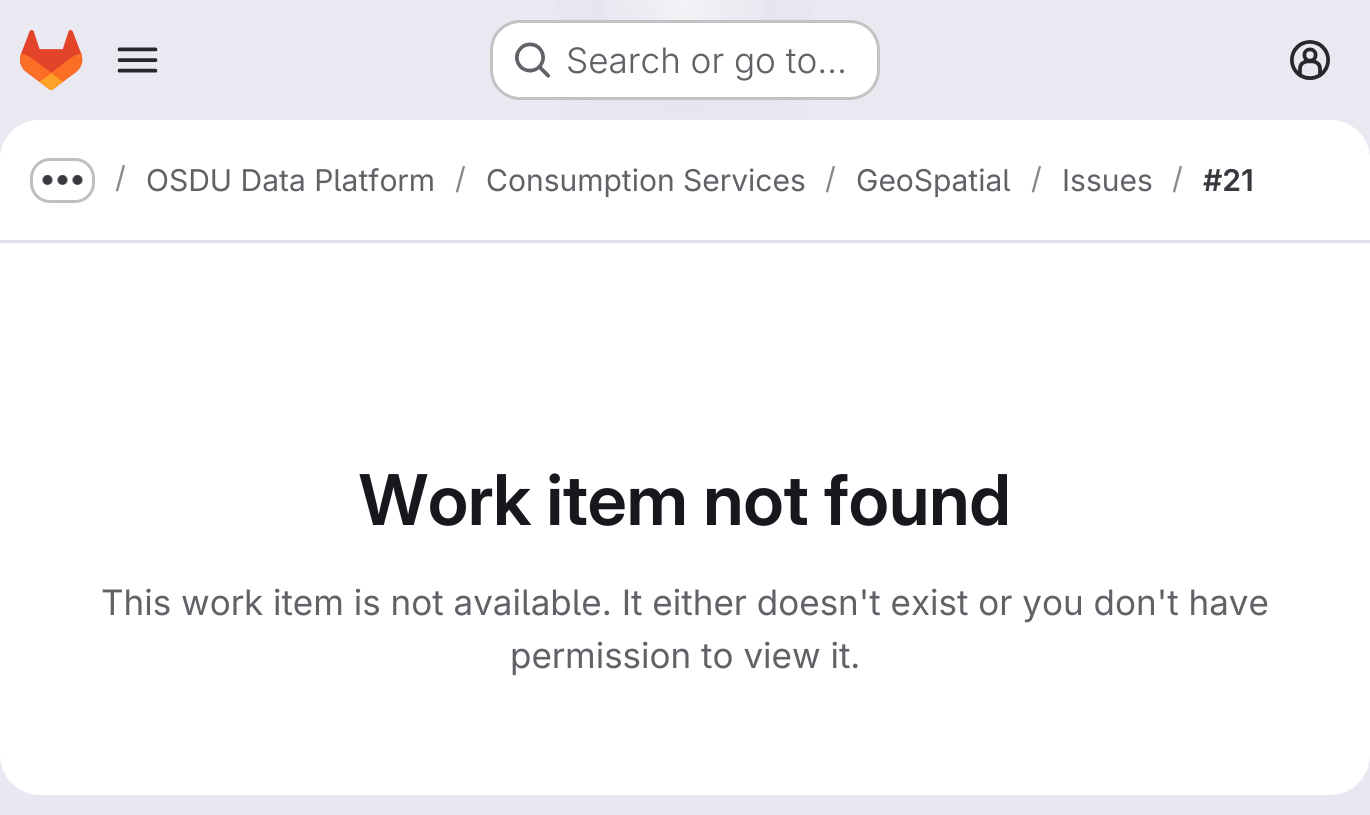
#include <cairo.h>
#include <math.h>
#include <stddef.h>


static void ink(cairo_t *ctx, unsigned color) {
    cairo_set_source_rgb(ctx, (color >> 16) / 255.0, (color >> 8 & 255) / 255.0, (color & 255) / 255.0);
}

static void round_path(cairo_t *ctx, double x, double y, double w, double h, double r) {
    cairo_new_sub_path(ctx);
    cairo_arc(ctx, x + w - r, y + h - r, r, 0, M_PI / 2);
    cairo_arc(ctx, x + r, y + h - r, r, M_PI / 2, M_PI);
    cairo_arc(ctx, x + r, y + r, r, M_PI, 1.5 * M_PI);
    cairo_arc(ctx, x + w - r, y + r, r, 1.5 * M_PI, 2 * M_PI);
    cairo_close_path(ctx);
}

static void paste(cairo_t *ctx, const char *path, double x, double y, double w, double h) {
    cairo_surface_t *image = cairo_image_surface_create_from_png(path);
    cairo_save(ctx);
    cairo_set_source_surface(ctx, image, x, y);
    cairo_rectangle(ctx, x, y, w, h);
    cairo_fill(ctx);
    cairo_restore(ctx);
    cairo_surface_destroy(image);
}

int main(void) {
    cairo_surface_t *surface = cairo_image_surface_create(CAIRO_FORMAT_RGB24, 1370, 815);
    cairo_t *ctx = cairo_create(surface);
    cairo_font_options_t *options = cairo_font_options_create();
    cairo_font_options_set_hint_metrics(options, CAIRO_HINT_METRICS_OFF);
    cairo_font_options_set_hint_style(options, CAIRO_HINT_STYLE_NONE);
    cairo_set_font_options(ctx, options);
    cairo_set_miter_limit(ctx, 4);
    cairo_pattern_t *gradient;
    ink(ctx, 0xFFFFFF);
    cairo_paint(ctx);
    gradient = cairo_pattern_create_linear(775, 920, 595, -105);
    cairo_pattern_add_color_stop_rgba(gradient, 0, 0.91, 0.902, 0.941, 1);
    cairo_pattern_add_color_stop_rgba(gradient, 0.7, 0.918, 0.914, 0.949, 1);
    cairo_set_source(ctx, gradient);
    cairo_pattern_destroy(gradient);
    cairo_rectangle(ctx, 0, 0, 1370, 815);
    cairo_fill(ctx);
    gradient = cairo_pattern_create_radial(0, 0, 0, 0, 0, 1);
    cairo_pattern_set_matrix(gradient, &(cairo_matrix_t){1.0 / 685, 0, 0, 1.0 / 815, -1.0 * 685 / 685, -1.0 * 0 / 815});
    cairo_pattern_add_color_stop_rgba(gradient, 0, 0.894, 0.886, 0.929, 1);
    cairo_pattern_add_color_stop_rgba(gradient, 0.26, 0.894, 0.886, 0.929, 0);
    cairo_set_source(ctx, gradient);
    cairo_pattern_destroy(gradient);
    cairo_rectangle(ctx, 557, 0, 256, 120);
    cairo_fill(ctx);
    gradient = cairo_pattern_create_radial(0, 0, 0, 0, 0, 1);
    cairo_pattern_set_matrix(gradient, &(cairo_matrix_t){1.0 / 685, 0, 0, 1.0 / 815, -1.0 * 685 / 685, -1.0 * 0 / 815});
    cairo_pattern_add_color_stop_rgba(gradient, 0, 0.894, 0.886, 0.925, 1);
    cairo_pattern_add_color_stop_rgba(gradient, 0.18, 0.894, 0.886, 0.925, 0);
    cairo_set_source(ctx, gradient);
    cairo_pattern_destroy(gradient);
    cairo_rectangle(ctx, 634, 1, 102, 57);
    cairo_fill(ctx);
    gradient = cairo_pattern_create_radial(685, 0, 0, 685, 0, 1065);
    cairo_pattern_add_color_stop_rgba(gradient, 0, 1, 1, 1, 0.6);
    cairo_pattern_add_color_stop_rgba(gradient, 0.09, 1, 1, 1, 0);
    cairo_set_source(ctx, gradient);
    cairo_pattern_destroy(gradient);
    cairo_rectangle(ctx, 605, 0, 160, 20);
    cairo_fill(ctx);
    paste(ctx, "media/1.png", 20, 30, 63, 60);
    paste(ctx, "media/2.png", 117, 47, 41, 26);
    ink(ctx, 0xFFFFFF);
    round_path(ctx, 490, 20, 390, 80, 30);
    cairo_fill(ctx);
    round_path(ctx, 491.5, 21.5, 387, 77, 28.5);
    cairo_set_source_rgba(ctx, 0.02, 0.02, 0.024, 0.24);
    cairo_set_line_width(ctx, 3);
    cairo_stroke(ctx);
    paste(ctx, "media/3.png", 515, 42, 36, 36);
    cairo_select_font_face(ctx, "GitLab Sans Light", CAIRO_FONT_SLANT_NORMAL, CAIRO_FONT_WEIGHT_NORMAL);
    cairo_set_font_size(ctx, 35);
    ink(ctx, 0x626168);
    cairo_move_to(ctx, 566, 73);
    cairo_show_text(ctx, "Search or go to…");
    paste(ctx, "media/4.png", 1290, 40, 40, 40);
    ink(ctx, 0xFFFFFF);
    round_path(ctx, 0, 120, 1370, 675, 40);
    cairo_fill(ctx);
    cairo_new_path(ctx);
    cairo_move_to(ctx, 40, 120);
    cairo_line_to(ctx, 1330, 120);
    cairo_curve_to(ctx, 1352, 120, 1370, 138, 1370, 160);
    cairo_line_to(ctx, 1370, 243);
    cairo_line_to(ctx, 0, 243);
    cairo_line_to(ctx, 0, 160);
    cairo_curve_to(ctx, 0, 138, 18, 120, 40, 120);
    cairo_close_path(ctx);
    cairo_fill(ctx);
    ink(ctx, 0xE1DFEC);
    cairo_rectangle(ctx, 0, 240, 1370, 3);
    cairo_fill(ctx);
    round_path(ctx, 31.5, 159.5, 62, 42, 18.5);
    ink(ctx, 0xBFBFC3);
    cairo_stroke(ctx);
    paste(ctx, "media/5.png", 42, 175, 41, 10);
    cairo_select_font_face(ctx, "GitLab Sans", CAIRO_FONT_SLANT_NORMAL, CAIRO_FONT_WEIGHT_NORMAL);
    cairo_set_font_size(ctx, 30);
    ink(ctx, 0x89888D);
    cairo_move_to(ctx, 115, 188);
    cairo_show_text(ctx, "/");
    ink(ctx, 0x626168);
    cairo_move_to(ctx, 146, 191);
    cairo_show_text(ctx, "OSDU Data Platform");
    ink(ctx, 0x89888D);
    cairo_move_to(ctx, 455, 189);
    cairo_show_text(ctx, "/");
    ink(ctx, 0x626168);
    cairo_move_to(ctx, 486, 191);
    cairo_show_text(ctx, "Consumption Services");
    ink(ctx, 0x89888D);
    cairo_move_to(ctx, 825, 189);
    cairo_show_text(ctx, "/");
    ink(ctx, 0x626168);
    cairo_move_to(ctx, 856, 191);
    cairo_show_text(ctx, "GeoSpatial");
    ink(ctx, 0x89888D);
    cairo_move_to(ctx, 1031, 189);
    cairo_show_text(ctx, "/");
    ink(ctx, 0x626168);
    cairo_move_to(ctx, 1062, 191);
    cairo_show_text(ctx, "Issues");
    ink(ctx, 0x89888D);
    cairo_move_to(ctx, 1172, 189);
    cairo_show_text(ctx, "/");
    cairo_select_font_face(ctx, "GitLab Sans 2 SemiBold", CAIRO_FONT_SLANT_NORMAL, CAIRO_FONT_WEIGHT_NORMAL);
    ink(ctx, 0x3A383F);
    cairo_move_to(ctx, 1203, 191);
    cairo_show_text(ctx, "#21");
    cairo_select_font_face(ctx, "GitLab Sans SemiBold", CAIRO_FONT_SLANT_NORMAL, CAIRO_FONT_WEIGHT_NORMAL);
    cairo_set_font_size(ctx, 70);
    ink(ctx, 0x18171D);
    cairo_move_to(ctx, 359, 525);
    cairo_show_text(ctx, "Work item not found");
    cairo_select_font_face(ctx, "GitLab Sans", CAIRO_FONT_SLANT_NORMAL, CAIRO_FONT_WEIGHT_NORMAL);
    cairo_set_font_size(ctx, 35);
    ink(ctx, 0x626168);
    cairo_move_to(ctx, 101, 615);
    cairo_show_text(ctx, "This work item is not available. It either doesn't exist or you don't have");
    cairo_move_to(ctx, 510, 668);
    cairo_show_text(ctx, "permission to view it.");
    cairo_surface_write_to_png(surface, "image.png");
    cairo_font_options_destroy(options);
    cairo_destroy(ctx);
    cairo_surface_destroy(surface);
    return 0;
}
